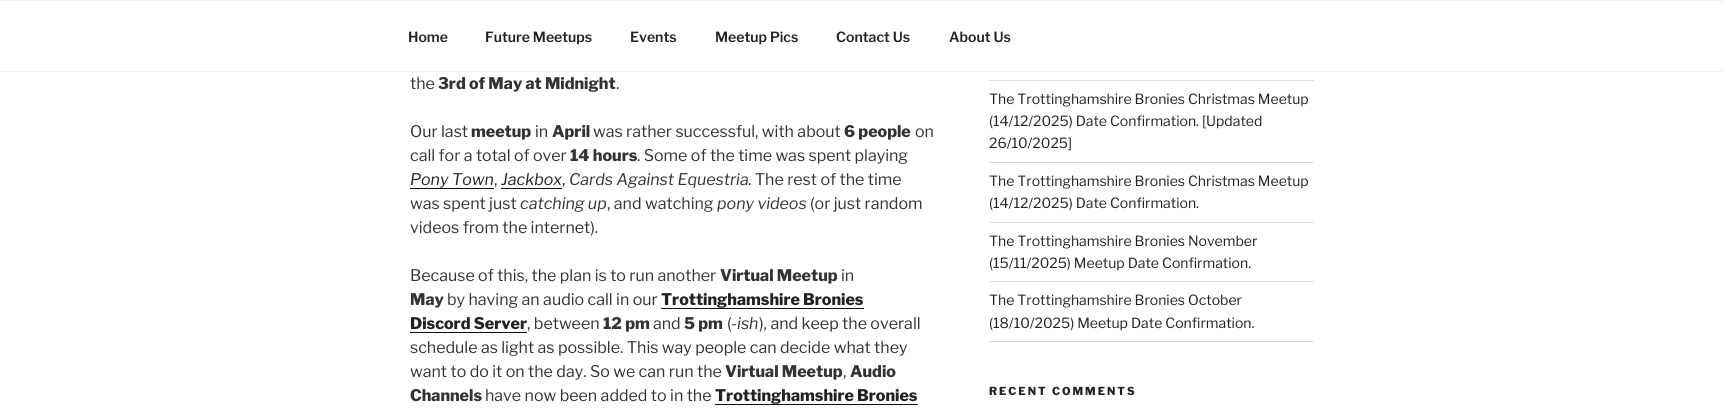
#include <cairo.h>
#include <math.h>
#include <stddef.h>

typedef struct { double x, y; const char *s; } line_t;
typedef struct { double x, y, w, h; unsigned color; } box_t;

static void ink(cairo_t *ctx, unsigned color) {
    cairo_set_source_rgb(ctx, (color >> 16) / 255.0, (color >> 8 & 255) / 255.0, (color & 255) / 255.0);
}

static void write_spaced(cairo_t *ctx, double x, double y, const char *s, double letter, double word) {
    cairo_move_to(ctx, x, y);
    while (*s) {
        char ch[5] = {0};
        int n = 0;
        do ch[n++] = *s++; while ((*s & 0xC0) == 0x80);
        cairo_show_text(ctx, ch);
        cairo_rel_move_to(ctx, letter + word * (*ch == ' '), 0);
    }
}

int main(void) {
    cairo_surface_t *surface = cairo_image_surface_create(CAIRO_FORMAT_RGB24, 1724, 412);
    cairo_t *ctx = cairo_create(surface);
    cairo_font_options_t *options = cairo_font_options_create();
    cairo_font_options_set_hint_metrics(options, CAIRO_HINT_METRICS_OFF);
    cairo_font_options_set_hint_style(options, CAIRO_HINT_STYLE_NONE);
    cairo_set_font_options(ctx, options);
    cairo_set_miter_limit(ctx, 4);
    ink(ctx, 0xFFFFFF);
    cairo_paint(ctx);
    ink(ctx, 0xEEEEEE);
    cairo_rectangle(ctx, 0, 0, 1724, 1);
    cairo_fill(ctx);
    cairo_rectangle(ctx, 0, 71, 1724, 1);
    cairo_fill(ctx);
    cairo_select_font_face(ctx, "Libre Franklin SemiBold", CAIRO_FONT_SLANT_NORMAL, CAIRO_FONT_WEIGHT_NORMAL);
    cairo_set_font_size(ctx, 14);
    ink(ctx, 0x222222);
    {
        static const line_t items[] = {
            {408, 42, "Home"},
            {485, 42, "Future Meetups"},
            {630, 42, "Events"},
            {715, 42, "Meetup Pics"},
            {836, 42, "Contact Us"},
            {949, 42, "About Us"},
        };
        for (size_t i = 0; i < sizeof items / sizeof *items; i++) {
            cairo_move_to(ctx, items[i].x, items[i].y);
            cairo_show_text(ctx, items[i].s);
        }
    }
    cairo_select_font_face(ctx, "Libre Franklin", CAIRO_FONT_SLANT_NORMAL, CAIRO_FONT_WEIGHT_NORMAL);
    cairo_set_font_size(ctx, 16);
    ink(ctx, 0x333333);
    cairo_move_to(ctx, 410, 89);
    cairo_show_text(ctx, "the");
    cairo_select_font_face(ctx, "Libre Franklin ExtraBold", CAIRO_FONT_SLANT_NORMAL, CAIRO_FONT_WEIGHT_NORMAL);
    cairo_move_to(ctx, 438, 89);
    cairo_show_text(ctx, "3rd of May at Midnight");
    cairo_select_font_face(ctx, "Libre Franklin", CAIRO_FONT_SLANT_NORMAL, CAIRO_FONT_WEIGHT_NORMAL);
    cairo_move_to(ctx, 616, 89);
    cairo_show_text(ctx, ".");
    cairo_move_to(ctx, 410, 137);
    cairo_show_text(ctx, "Our last");
    cairo_select_font_face(ctx, "Libre Franklin ExtraBold", CAIRO_FONT_SLANT_NORMAL, CAIRO_FONT_WEIGHT_NORMAL);
    cairo_move_to(ctx, 471, 137);
    cairo_show_text(ctx, "meetup");
    cairo_select_font_face(ctx, "Libre Franklin", CAIRO_FONT_SLANT_NORMAL, CAIRO_FONT_WEIGHT_NORMAL);
    cairo_move_to(ctx, 535, 137);
    cairo_show_text(ctx, "in");
    cairo_select_font_face(ctx, "Libre Franklin ExtraBold", CAIRO_FONT_SLANT_NORMAL, CAIRO_FONT_WEIGHT_NORMAL);
    cairo_move_to(ctx, 552, 137);
    cairo_show_text(ctx, "April");
    cairo_select_font_face(ctx, "Libre Franklin", CAIRO_FONT_SLANT_NORMAL, CAIRO_FONT_WEIGHT_NORMAL);
    cairo_move_to(ctx, 593, 137);
    cairo_show_text(ctx, "was rather successful, with about");
    cairo_select_font_face(ctx, "Libre Franklin ExtraBold", CAIRO_FONT_SLANT_NORMAL, CAIRO_FONT_WEIGHT_NORMAL);
    cairo_move_to(ctx, 844, 137);
    cairo_show_text(ctx, "6 people");
    cairo_select_font_face(ctx, "Libre Franklin", CAIRO_FONT_SLANT_NORMAL, CAIRO_FONT_WEIGHT_NORMAL);
    cairo_move_to(ctx, 915, 137);
    cairo_show_text(ctx, "on");
    cairo_move_to(ctx, 410, 161);
    cairo_show_text(ctx, "call for a total of over");
    cairo_select_font_face(ctx, "Libre Franklin ExtraBold", CAIRO_FONT_SLANT_NORMAL, CAIRO_FONT_WEIGHT_NORMAL);
    cairo_move_to(ctx, 570, 161);
    cairo_show_text(ctx, "14 hours");
    cairo_select_font_face(ctx, "Libre Franklin", CAIRO_FONT_SLANT_NORMAL, CAIRO_FONT_WEIGHT_NORMAL);
    cairo_move_to(ctx, 637, 161);
    cairo_show_text(ctx, ". Some of the time was spent playing");
    cairo_select_font_face(ctx, "Libre Franklin", CAIRO_FONT_SLANT_ITALIC, CAIRO_FONT_WEIGHT_NORMAL);
    ink(ctx, 0x222222);
    cairo_move_to(ctx, 410, 185);
    cairo_show_text(ctx, "Pony Town");
    ink(ctx, 0x0F0F0F);
    cairo_rectangle(ctx, 410, 188, 84, 1);
    cairo_fill(ctx);
    cairo_select_font_face(ctx, "Libre Franklin", CAIRO_FONT_SLANT_NORMAL, CAIRO_FONT_WEIGHT_NORMAL);
    ink(ctx, 0x333333);
    cairo_move_to(ctx, 494, 185);
    cairo_show_text(ctx, ",");
    cairo_select_font_face(ctx, "Libre Franklin", CAIRO_FONT_SLANT_ITALIC, CAIRO_FONT_WEIGHT_NORMAL);
    ink(ctx, 0x222222);
    cairo_move_to(ctx, 501, 185);
    cairo_show_text(ctx, "Jackbox");
    ink(ctx, 0x0F0F0F);
    cairo_rectangle(ctx, 501, 188, 61, 1);
    cairo_fill(ctx);
    cairo_select_font_face(ctx, "Libre Franklin", CAIRO_FONT_SLANT_NORMAL, CAIRO_FONT_WEIGHT_NORMAL);
    ink(ctx, 0x333333);
    cairo_move_to(ctx, 562, 185);
    cairo_show_text(ctx, ",");
    cairo_select_font_face(ctx, "Libre Franklin", CAIRO_FONT_SLANT_ITALIC, CAIRO_FONT_WEIGHT_NORMAL);
    cairo_move_to(ctx, 569, 185);
    cairo_show_text(ctx, "Cards Against Equestria");
    cairo_select_font_face(ctx, "Libre Franklin", CAIRO_FONT_SLANT_NORMAL, CAIRO_FONT_WEIGHT_NORMAL);
    cairo_move_to(ctx, 748, 185);
    cairo_show_text(ctx, ". The rest of the time");
    cairo_move_to(ctx, 410, 209);
    cairo_show_text(ctx, "was spent just");
    cairo_select_font_face(ctx, "Libre Franklin", CAIRO_FONT_SLANT_ITALIC, CAIRO_FONT_WEIGHT_NORMAL);
    cairo_move_to(ctx, 520, 209);
    cairo_show_text(ctx, "catching up");
    cairo_select_font_face(ctx, "Libre Franklin", CAIRO_FONT_SLANT_NORMAL, CAIRO_FONT_WEIGHT_NORMAL);
    cairo_move_to(ctx, 607, 209);
    cairo_show_text(ctx, ", and watching");
    cairo_select_font_face(ctx, "Libre Franklin", CAIRO_FONT_SLANT_ITALIC, CAIRO_FONT_WEIGHT_NORMAL);
    cairo_move_to(ctx, 717, 209);
    cairo_show_text(ctx, "pony videos");
    cairo_select_font_face(ctx, "Libre Franklin", CAIRO_FONT_SLANT_NORMAL, CAIRO_FONT_WEIGHT_NORMAL);
    {
        static const line_t items[] = {
            {810, 209, "(or just random"},
            {410, 233, "videos from the internet)."},
            {410, 281, "Because of this, the plan is to run another"},
        };
        for (size_t i = 0; i < sizeof items / sizeof *items; i++) {
            cairo_move_to(ctx, items[i].x, items[i].y);
            cairo_show_text(ctx, items[i].s);
        }
    }
    cairo_select_font_face(ctx, "Libre Franklin ExtraBold", CAIRO_FONT_SLANT_NORMAL, CAIRO_FONT_WEIGHT_NORMAL);
    cairo_move_to(ctx, 720, 281);
    cairo_show_text(ctx, "Virtual Meetup");
    cairo_select_font_face(ctx, "Libre Franklin", CAIRO_FONT_SLANT_NORMAL, CAIRO_FONT_WEIGHT_NORMAL);
    cairo_move_to(ctx, 841, 281);
    cairo_show_text(ctx, "in");
    cairo_select_font_face(ctx, "Libre Franklin ExtraBold", CAIRO_FONT_SLANT_NORMAL, CAIRO_FONT_WEIGHT_NORMAL);
    cairo_move_to(ctx, 410, 305);
    cairo_show_text(ctx, "May");
    cairo_select_font_face(ctx, "Libre Franklin", CAIRO_FONT_SLANT_NORMAL, CAIRO_FONT_WEIGHT_NORMAL);
    cairo_move_to(ctx, 447, 305);
    cairo_show_text(ctx, "by having an audio call in our");
    cairo_select_font_face(ctx, "Libre Franklin ExtraBold", CAIRO_FONT_SLANT_NORMAL, CAIRO_FONT_WEIGHT_NORMAL);
    ink(ctx, 0x222222);
    cairo_move_to(ctx, 661, 305);
    cairo_show_text(ctx, "Trottinghamshire Bronies");
    ink(ctx, 0x0F0F0F);
    cairo_rectangle(ctx, 661, 308, 203, 1);
    cairo_fill(ctx);
    ink(ctx, 0x222222);
    cairo_move_to(ctx, 410, 329);
    cairo_show_text(ctx, "Discord Server");
    ink(ctx, 0x0F0F0F);
    cairo_rectangle(ctx, 410, 332, 117, 1);
    cairo_fill(ctx);
    cairo_select_font_face(ctx, "Libre Franklin", CAIRO_FONT_SLANT_NORMAL, CAIRO_FONT_WEIGHT_NORMAL);
    ink(ctx, 0x333333);
    cairo_move_to(ctx, 527, 329);
    cairo_show_text(ctx, ", between");
    cairo_select_font_face(ctx, "Libre Franklin ExtraBold", CAIRO_FONT_SLANT_NORMAL, CAIRO_FONT_WEIGHT_NORMAL);
    cairo_move_to(ctx, 603, 329);
    cairo_show_text(ctx, "12 pm");
    cairo_select_font_face(ctx, "Libre Franklin", CAIRO_FONT_SLANT_NORMAL, CAIRO_FONT_WEIGHT_NORMAL);
    cairo_move_to(ctx, 653, 329);
    cairo_show_text(ctx, "and");
    cairo_select_font_face(ctx, "Libre Franklin ExtraBold", CAIRO_FONT_SLANT_NORMAL, CAIRO_FONT_WEIGHT_NORMAL);
    cairo_move_to(ctx, 684, 329);
    cairo_show_text(ctx, "5 pm");
    cairo_select_font_face(ctx, "Libre Franklin", CAIRO_FONT_SLANT_NORMAL, CAIRO_FONT_WEIGHT_NORMAL);
    cairo_move_to(ctx, 727, 329);
    cairo_show_text(ctx, "(");
    cairo_select_font_face(ctx, "Libre Franklin", CAIRO_FONT_SLANT_ITALIC, CAIRO_FONT_WEIGHT_NORMAL);
    cairo_move_to(ctx, 731, 329);
    cairo_show_text(ctx, "-ish");
    cairo_select_font_face(ctx, "Libre Franklin", CAIRO_FONT_SLANT_NORMAL, CAIRO_FONT_WEIGHT_NORMAL);
    {
        static const line_t items[] = {
            {759, 329, "), and keep the overall"},
            {410, 353, "schedule as light as possible. This way people can decide what they"},
            {410, 377, "want to do it on the day. So we can run the"},
        };
        for (size_t i = 0; i < sizeof items / sizeof *items; i++) {
            cairo_move_to(ctx, items[i].x, items[i].y);
            cairo_show_text(ctx, items[i].s);
        }
    }
    cairo_select_font_face(ctx, "Libre Franklin ExtraBold", CAIRO_FONT_SLANT_NORMAL, CAIRO_FONT_WEIGHT_NORMAL);
    cairo_move_to(ctx, 725, 377);
    cairo_show_text(ctx, "Virtual Meetup");
    cairo_select_font_face(ctx, "Libre Franklin", CAIRO_FONT_SLANT_NORMAL, CAIRO_FONT_WEIGHT_NORMAL);
    cairo_move_to(ctx, 843, 377);
    cairo_show_text(ctx, ",");
    cairo_select_font_face(ctx, "Libre Franklin ExtraBold", CAIRO_FONT_SLANT_NORMAL, CAIRO_FONT_WEIGHT_NORMAL);
    cairo_move_to(ctx, 850, 377);
    cairo_show_text(ctx, "Audio");
    cairo_move_to(ctx, 410, 401);
    cairo_show_text(ctx, "Channels");
    cairo_select_font_face(ctx, "Libre Franklin", CAIRO_FONT_SLANT_NORMAL, CAIRO_FONT_WEIGHT_NORMAL);
    cairo_move_to(ctx, 485, 401);
    cairo_show_text(ctx, "have now been added to in the");
    cairo_select_font_face(ctx, "Libre Franklin ExtraBold", CAIRO_FONT_SLANT_NORMAL, CAIRO_FONT_WEIGHT_NORMAL);
    ink(ctx, 0x222222);
    cairo_move_to(ctx, 715, 401);
    cairo_show_text(ctx, "Trottinghamshire Bronies");
    {
        static const box_t items[] = {
            {715, 404, 203, 1, 0x0F0F0F},
            {989, 80, 325, 1, 0xDDDDDD},
            {989, 162, 325, 1, 0xDDDDDD},
        };
        for (size_t i = 0; i < sizeof items / sizeof *items; i++) {
            ink(ctx, items[i].color);
            cairo_rectangle(ctx, items[i].x, items[i].y, items[i].w, items[i].h);
            cairo_fill(ctx);
        }
    }
    cairo_select_font_face(ctx, "Libre Franklin", CAIRO_FONT_SLANT_NORMAL, CAIRO_FONT_WEIGHT_NORMAL);
    cairo_set_font_size(ctx, 14);
    ink(ctx, 0x222222);
    {
        static const line_t items[] = {
            {989, 104, "The Trottinghamshire Bronies Christmas Meetup"},
            {989, 126, "(14/12/2025) Date Confirmation. [Updated"},
            {989, 148, "26/10/2025]"},
        };
        for (size_t i = 0; i < sizeof items / sizeof *items; i++) {
            cairo_move_to(ctx, items[i].x, items[i].y);
            cairo_show_text(ctx, items[i].s);
        }
    }
    ink(ctx, 0xDDDDDD);
    cairo_rectangle(ctx, 989, 222, 325, 1);
    cairo_fill(ctx);
    ink(ctx, 0x222222);
    cairo_move_to(ctx, 989, 186);
    cairo_show_text(ctx, "The Trottinghamshire Bronies Christmas Meetup");
    cairo_move_to(ctx, 989, 208);
    cairo_show_text(ctx, "(14/12/2025) Date Confirmation.");
    ink(ctx, 0xDDDDDD);
    cairo_rectangle(ctx, 989, 281, 325, 1);
    cairo_fill(ctx);
    ink(ctx, 0x222222);
    cairo_move_to(ctx, 989, 246);
    cairo_show_text(ctx, "The Trottinghamshire Bronies November");
    cairo_move_to(ctx, 989, 268);
    cairo_show_text(ctx, "(15/11/2025) Meetup Date Confirmation.");
    ink(ctx, 0xDDDDDD);
    cairo_rectangle(ctx, 989, 341, 325, 1);
    cairo_fill(ctx);
    ink(ctx, 0x222222);
    cairo_move_to(ctx, 989, 305);
    cairo_show_text(ctx, "The Trottinghamshire Bronies October");
    cairo_move_to(ctx, 989, 328);
    cairo_show_text(ctx, "(18/10/2025) Meetup Date Confirmation.");
    cairo_select_font_face(ctx, "Libre Franklin ExtraBold", CAIRO_FONT_SLANT_NORMAL, CAIRO_FONT_WEIGHT_NORMAL);
    cairo_set_font_size(ctx, 11);
    write_spaced(ctx, 989, 395, "RECENT COMMENTS", 2, 0);
    cairo_surface_write_to_png(surface, "image.png");
    cairo_font_options_destroy(options);
    cairo_destroy(ctx);
    cairo_surface_destroy(surface);
    return 0;
}
